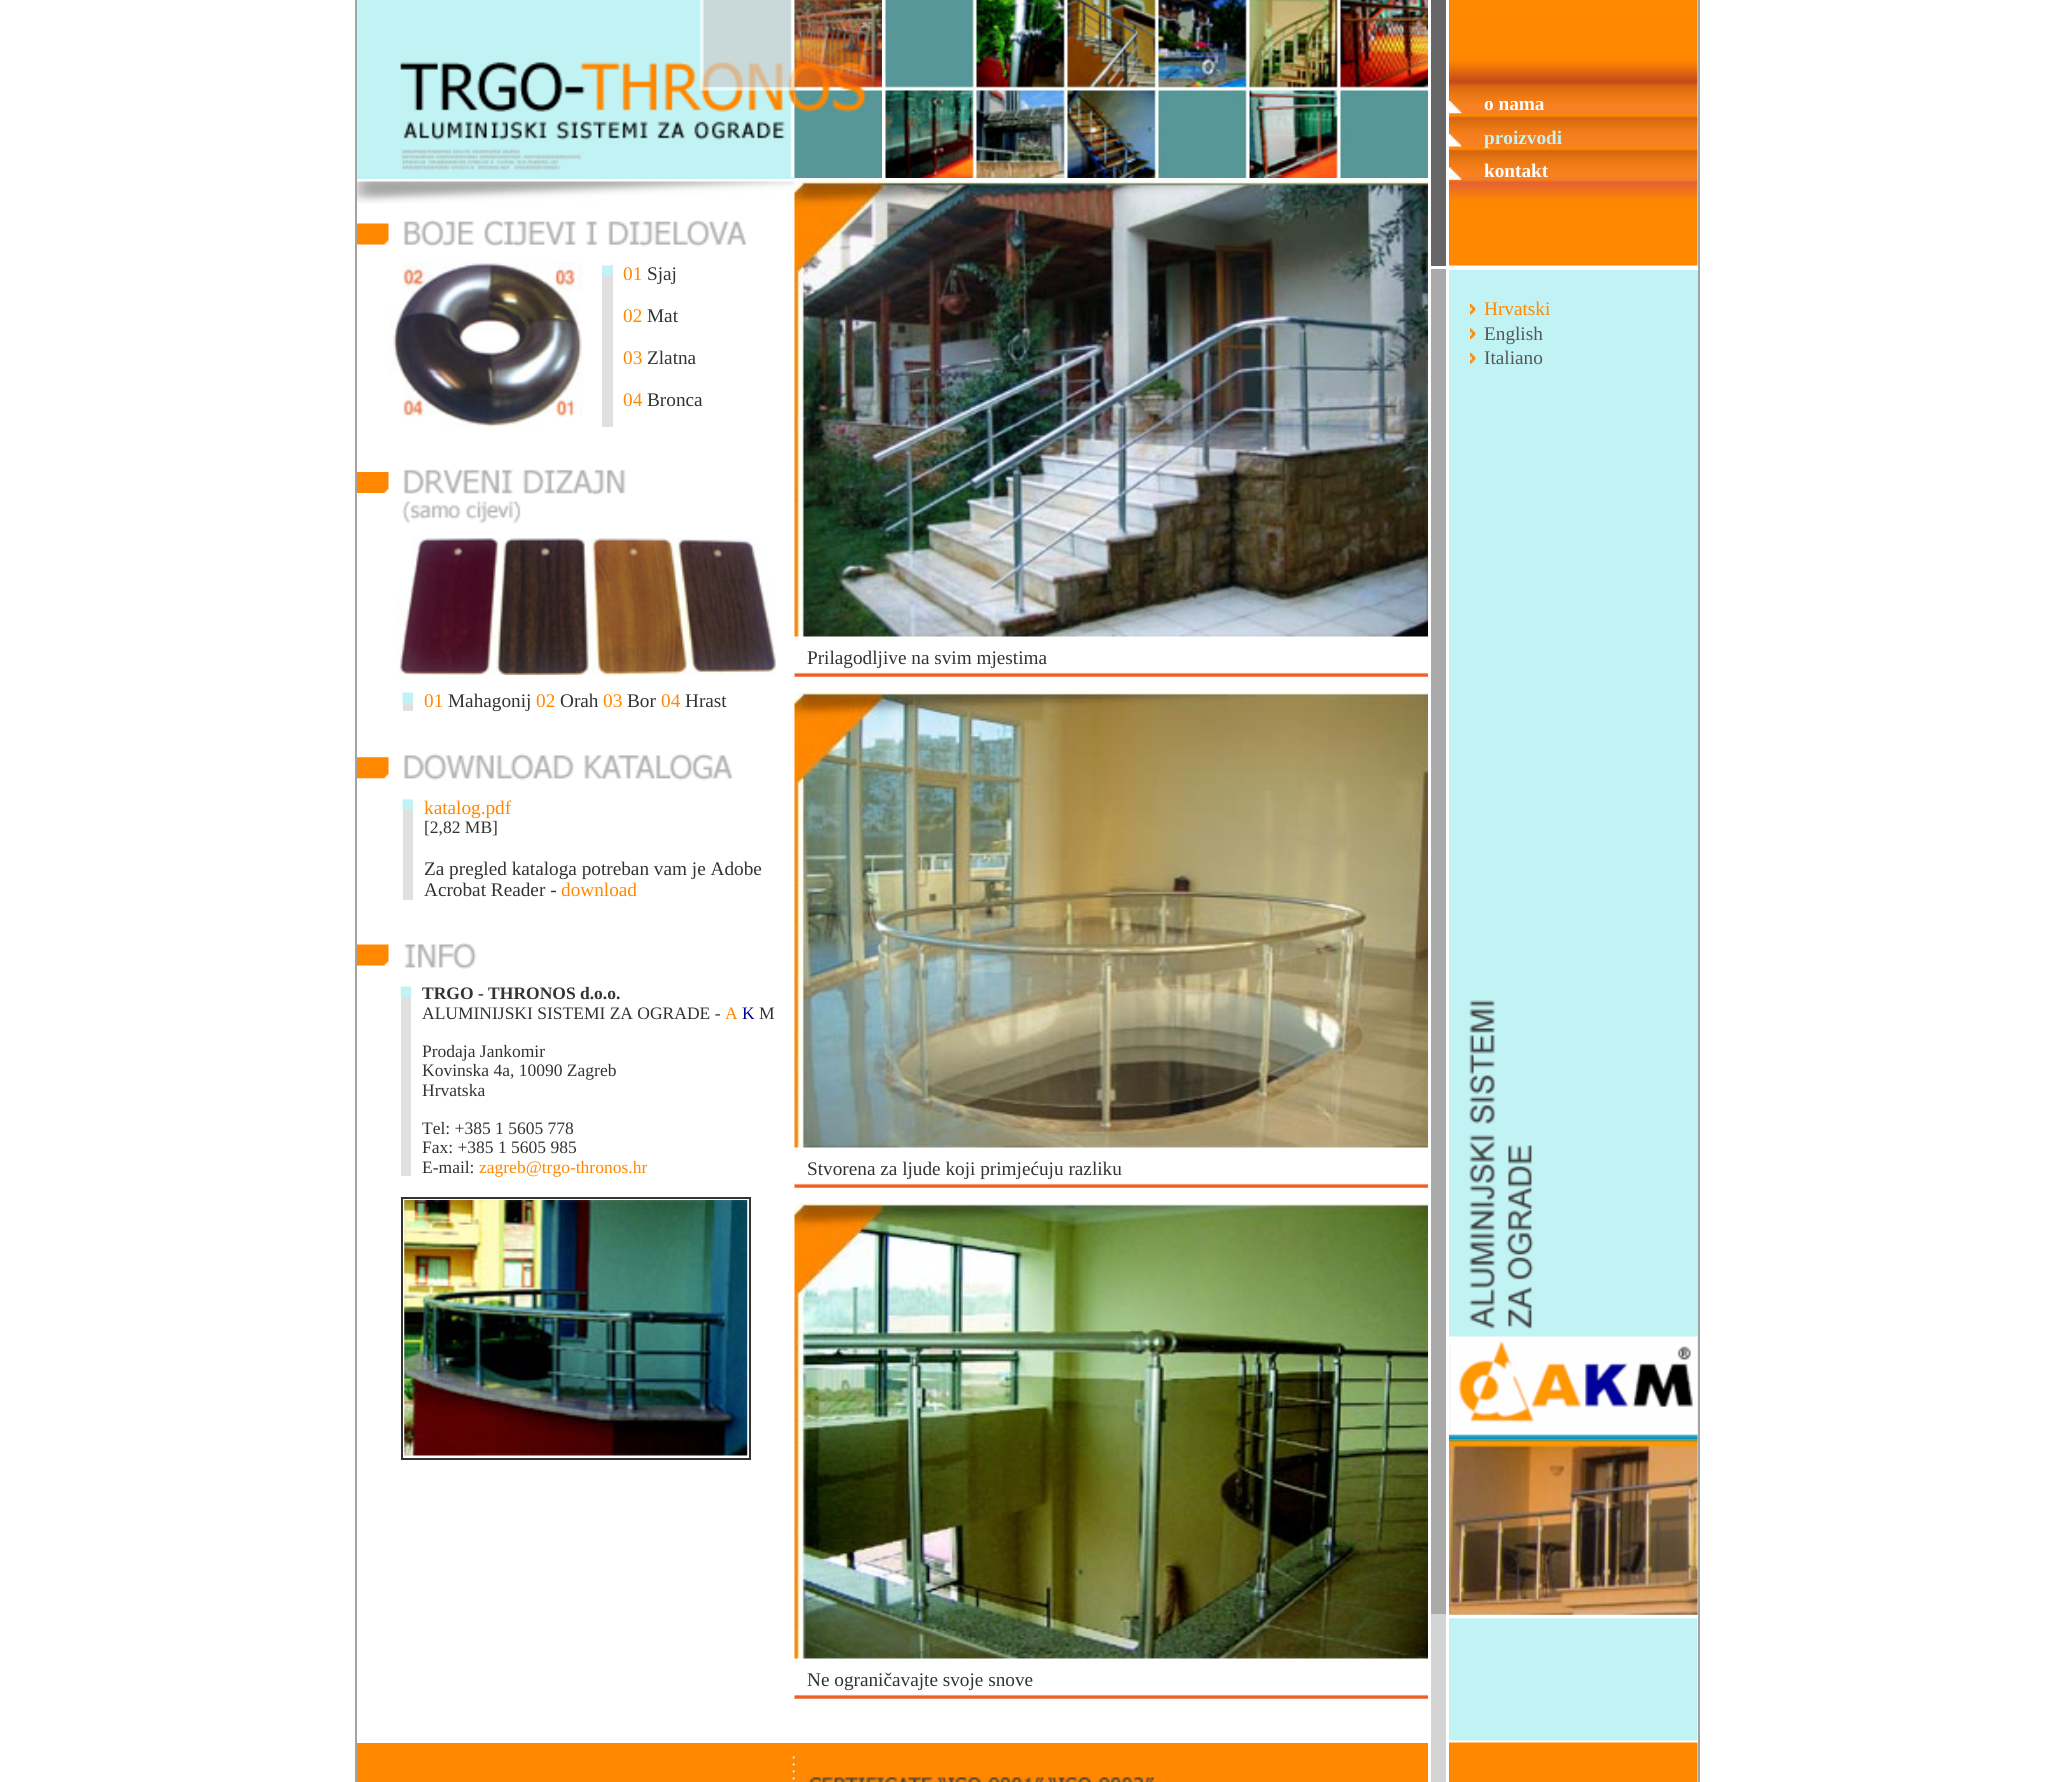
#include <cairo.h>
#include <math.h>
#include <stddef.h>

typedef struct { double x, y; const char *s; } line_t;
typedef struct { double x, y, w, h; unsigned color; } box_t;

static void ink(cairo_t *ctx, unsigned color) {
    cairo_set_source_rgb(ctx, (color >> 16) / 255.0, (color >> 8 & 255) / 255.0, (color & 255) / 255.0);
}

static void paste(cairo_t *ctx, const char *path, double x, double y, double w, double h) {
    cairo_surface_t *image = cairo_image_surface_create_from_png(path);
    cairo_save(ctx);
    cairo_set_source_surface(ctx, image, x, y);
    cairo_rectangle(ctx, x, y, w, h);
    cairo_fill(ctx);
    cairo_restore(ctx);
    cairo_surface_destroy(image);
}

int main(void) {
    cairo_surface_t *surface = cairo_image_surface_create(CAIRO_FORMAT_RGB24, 2054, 1782);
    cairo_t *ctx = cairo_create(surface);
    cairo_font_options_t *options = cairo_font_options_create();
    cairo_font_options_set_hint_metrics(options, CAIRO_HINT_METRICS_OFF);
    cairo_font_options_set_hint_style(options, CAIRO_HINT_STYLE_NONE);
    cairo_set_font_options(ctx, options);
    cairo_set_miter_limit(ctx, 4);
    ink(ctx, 0xFFFFFF);
    cairo_paint(ctx);
    {
        static const box_t items[] = {
            {1698, 0, 2, 1782, 0xA4A3A3},
            {355, 0, 2, 1782, 0xA4A3A3},
            {1431, 0, 15, 266, 0x666666},
        };
        for (size_t i = 0; i < sizeof items / sizeof *items; i++) {
            ink(ctx, items[i].color);
            cairo_rectangle(ctx, items[i].x, items[i].y, items[i].w, items[i].h);
            cairo_fill(ctx);
        }
    }
    paste(ctx, "media/1.png", 1449, 0, 249, 266);
    paste(ctx, "media/2.png", 1449, 101, 13, 13);
    cairo_select_font_face(ctx, "Liberation Serif", CAIRO_FONT_SLANT_NORMAL, CAIRO_FONT_WEIGHT_BOLD);
    cairo_set_font_size(ctx, 19.25);
    ink(ctx, 0xFFFFFF);
    cairo_move_to(ctx, 1484, 110);
    cairo_show_text(ctx, "o nama");
    paste(ctx, "media/3.png", 1449, 134, 13, 13);
    ink(ctx, 0xC1F3F4);
    cairo_move_to(ctx, 1484, 144);
    cairo_show_text(ctx, "proizvodi");
    paste(ctx, "media/4.png", 1449, 167, 13, 13);
    ink(ctx, 0xFFFFFF);
    cairo_move_to(ctx, 1484, 177);
    cairo_show_text(ctx, "kontakt");
    ink(ctx, 0xC1F3F4);
    cairo_rectangle(ctx, 357, 0, 438, 179);
    cairo_fill(ctx);
    paste(ctx, "media/5.png", 400, 0, 395, 178);
    paste(ctx, "media/6.png", 794, 0, 88, 178);
    paste(ctx, "media/7.png", 885, 0, 543, 178);
    paste(ctx, "media/8.png", 357, 181, 438, 23);
    paste(ctx, "media/9.png", 357, 223, 32, 22);
    paste(ctx, "media/10.png", 404, 220, 343, 27);
    paste(ctx, "media/11.png", 389, 262, 194, 165);
    ink(ctx, 0xE0E0E0);
    cairo_rectangle(ctx, 602, 263, 11, 164);
    cairo_fill(ctx);
    paste(ctx, "media/12.png", 602, 263, 11, 13);
    cairo_select_font_face(ctx, "Liberation Serif", CAIRO_FONT_SLANT_NORMAL, CAIRO_FONT_WEIGHT_NORMAL);
    ink(ctx, 0xFF8800);
    cairo_move_to(ctx, 623, 280);
    cairo_show_text(ctx, "01");
    ink(ctx, 0x333333);
    cairo_move_to(ctx, 647, 280);
    cairo_show_text(ctx, "Sjaj");
    ink(ctx, 0xFF8800);
    cairo_move_to(ctx, 623, 322);
    cairo_show_text(ctx, "02");
    ink(ctx, 0x333333);
    cairo_move_to(ctx, 647, 322);
    cairo_show_text(ctx, "Mat");
    ink(ctx, 0xFF8800);
    cairo_move_to(ctx, 623, 364);
    cairo_show_text(ctx, "03");
    ink(ctx, 0x333333);
    cairo_move_to(ctx, 647, 364);
    cairo_show_text(ctx, "Zlatna");
    ink(ctx, 0xFF8800);
    cairo_move_to(ctx, 623, 406);
    cairo_show_text(ctx, "04");
    ink(ctx, 0x333333);
    cairo_move_to(ctx, 647, 406);
    cairo_show_text(ctx, "Bronca");
    paste(ctx, "media/13.png", 357, 472, 32, 21);
    paste(ctx, "media/14.png", 402, 469, 224, 55);
    paste(ctx, "media/15.png", 398, 538, 378, 137);
    ink(ctx, 0xE0E0E0);
    cairo_rectangle(ctx, 403, 703, 10, 8);
    cairo_fill(ctx);
    paste(ctx, "media/16.png", 402, 690, 11, 13);
    ink(ctx, 0xFF8800);
    cairo_move_to(ctx, 424, 707);
    cairo_show_text(ctx, "01");
    ink(ctx, 0x333333);
    cairo_move_to(ctx, 448, 707);
    cairo_show_text(ctx, "Mahagonij");
    ink(ctx, 0xFF8800);
    cairo_move_to(ctx, 536, 707);
    cairo_show_text(ctx, "02");
    ink(ctx, 0x333333);
    cairo_move_to(ctx, 560, 707);
    cairo_show_text(ctx, "Orah");
    ink(ctx, 0xFF8800);
    cairo_move_to(ctx, 603, 707);
    cairo_show_text(ctx, "03");
    ink(ctx, 0x333333);
    cairo_move_to(ctx, 627, 707);
    cairo_show_text(ctx, "Bor");
    ink(ctx, 0xFF8800);
    cairo_move_to(ctx, 661, 707);
    cairo_show_text(ctx, "04");
    ink(ctx, 0x333333);
    cairo_move_to(ctx, 685, 707);
    cairo_show_text(ctx, "Hrast");
    paste(ctx, "media/17.png", 357, 757, 32, 22);
    paste(ctx, "media/18.png", 404, 753, 329, 28);
    ink(ctx, 0xE0E0E0);
    cairo_rectangle(ctx, 403, 809, 10, 91);
    cairo_fill(ctx);
    paste(ctx, "media/19.png", 402, 796, 11, 14);
    ink(ctx, 0xFF8800);
    cairo_move_to(ctx, 424, 814);
    cairo_show_text(ctx, "katalog.pdf");
    cairo_set_font_size(ctx, 17.5);
    ink(ctx, 0x333333);
    cairo_move_to(ctx, 424, 833);
    cairo_show_text(ctx, "[2,82 MB]");
    cairo_set_font_size(ctx, 19.25);
    cairo_move_to(ctx, 424, 875);
    cairo_show_text(ctx, "Za pregled kataloga potreban vam je Adobe");
    cairo_move_to(ctx, 424, 896);
    cairo_show_text(ctx, "Acrobat Reader -");
    ink(ctx, 0xFF8800);
    cairo_move_to(ctx, 561, 896);
    cairo_show_text(ctx, "download");
    paste(ctx, "media/9.png", 357, 944, 32, 22);
    paste(ctx, "media/20.png", 404, 942, 73, 27);
    ink(ctx, 0xE0E0E0);
    cairo_rectangle(ctx, 401, 997, 10, 179);
    cairo_fill(ctx);
    paste(ctx, "media/21.png", 400, 984, 12, 13);
    cairo_select_font_face(ctx, "Liberation Serif", CAIRO_FONT_SLANT_NORMAL, CAIRO_FONT_WEIGHT_BOLD);
    cairo_set_font_size(ctx, 17.5);
    ink(ctx, 0x333333);
    cairo_move_to(ctx, 422, 999);
    cairo_show_text(ctx, "TRGO - THRONOS d.o.o.");
    cairo_select_font_face(ctx, "Liberation Serif", CAIRO_FONT_SLANT_NORMAL, CAIRO_FONT_WEIGHT_NORMAL);
    cairo_move_to(ctx, 422, 1019);
    cairo_show_text(ctx, "ALUMINIJSKI SISTEMI ZA OGRADE -");
    ink(ctx, 0xFF8800);
    cairo_move_to(ctx, 725, 1019);
    cairo_show_text(ctx, "A");
    ink(ctx, 0x00009B);
    cairo_move_to(ctx, 742, 1019);
    cairo_show_text(ctx, "K");
    ink(ctx, 0x333333);
    {
        static const line_t items[] = {
            {759, 1019, "M"},
            {422, 1057, "Prodaja Jankomir"},
            {422, 1076, "Kovinska 4a, 10090 Zagreb"},
            {422, 1096, "Hrvatska"},
            {422, 1134, "Tel: +385 1 5605 778"},
            {422, 1153, "Fax: +385 1 5605 985"},
            {422, 1173, "E-mail:"},
        };
        for (size_t i = 0; i < sizeof items / sizeof *items; i++) {
            cairo_move_to(ctx, items[i].x, items[i].y);
            cairo_show_text(ctx, items[i].s);
        }
    }
    ink(ctx, 0xFF8800);
    cairo_move_to(ctx, 479, 1173);
    cairo_show_text(ctx, "zagreb@trgo-thronos.hr");
    cairo_rectangle(ctx, 402, 1198, 348, 261);
    ink(ctx, 0x333333);
    cairo_stroke(ctx);
    paste(ctx, "media/22.png", 404, 1200, 344, 256);
    paste(ctx, "media/23.png", 794, 181, 634, 456);
    paste(ctx, "media/24.png", 794, 672, 634, 5);
    cairo_set_font_size(ctx, 19.25);
    cairo_move_to(ctx, 807, 664);
    cairo_show_text(ctx, "Prilagodljive na svim mjestima");
    paste(ctx, "media/25.png", 794, 692, 634, 456);
    paste(ctx, "media/24.png", 794, 1183, 634, 5);
    cairo_move_to(ctx, 807, 1175);
    cairo_show_text(ctx, "Stvorena za ljude koji primjećuju razliku");
    paste(ctx, "media/26.png", 794, 1203, 634, 456);
    paste(ctx, "media/24.png", 794, 1694, 634, 5);
    cairo_move_to(ctx, 807, 1686);
    cairo_show_text(ctx, "Ne ograničavajte svoje snove");
    ink(ctx, 0xAAAAAA);
    cairo_rectangle(ctx, 1431, 269, 15, 1345);
    cairo_fill(ctx);
    ink(ctx, 0xC1F3F4);
    cairo_rectangle(ctx, 1449, 270, 249, 1345);
    cairo_fill(ctx);
    paste(ctx, "media/27.png", 1470, 304, 6, 11);
    ink(ctx, 0xFF8800);
    cairo_move_to(ctx, 1484, 315);
    cairo_show_text(ctx, "Hrvatski");
    paste(ctx, "media/28.png", 1470, 328, 6, 11);
    ink(ctx, 0x565656);
    cairo_move_to(ctx, 1484, 340);
    cairo_show_text(ctx, "English");
    paste(ctx, "media/27.png", 1470, 353, 6, 11);
    cairo_move_to(ctx, 1484, 364);
    cairo_show_text(ctx, "Italiano");
    paste(ctx, "media/29.png", 1469, 1000, 65, 329);
    paste(ctx, "media/31.png", 1449, 1434, 249, 6);
    paste(ctx, "media/30.png", 1449, 1336, 249, 99);
    paste(ctx, "media/33.png", 1449, 1614, 249, 127);
    paste(ctx, "media/32.png", 1449, 1439, 249, 176);
    {
        static const box_t items[] = {
            {1431, 1614, 15, 168, 0xD4D4D4},
            {357, 1743, 436, 39, 0xFF8800},
            {793, 1743, 3, 14, 0xFF8800},
            {796, 1743, 632, 39, 0xFF8800},
        };
        for (size_t i = 0; i < sizeof items / sizeof *items; i++) {
            ink(ctx, items[i].color);
            cairo_rectangle(ctx, items[i].x, items[i].y, items[i].w, items[i].h);
            cairo_fill(ctx);
        }
    }
    paste(ctx, "media/34.png", 792, 1756, 5, 26);
    paste(ctx, "media/35.png", 808, 1777, 347, 5);
    paste(ctx, "media/36.png", 1449, 1740, 249, 42);
    cairo_surface_write_to_png(surface, "image.png");
    cairo_font_options_destroy(options);
    cairo_destroy(ctx);
    cairo_surface_destroy(surface);
    return 0;
}
